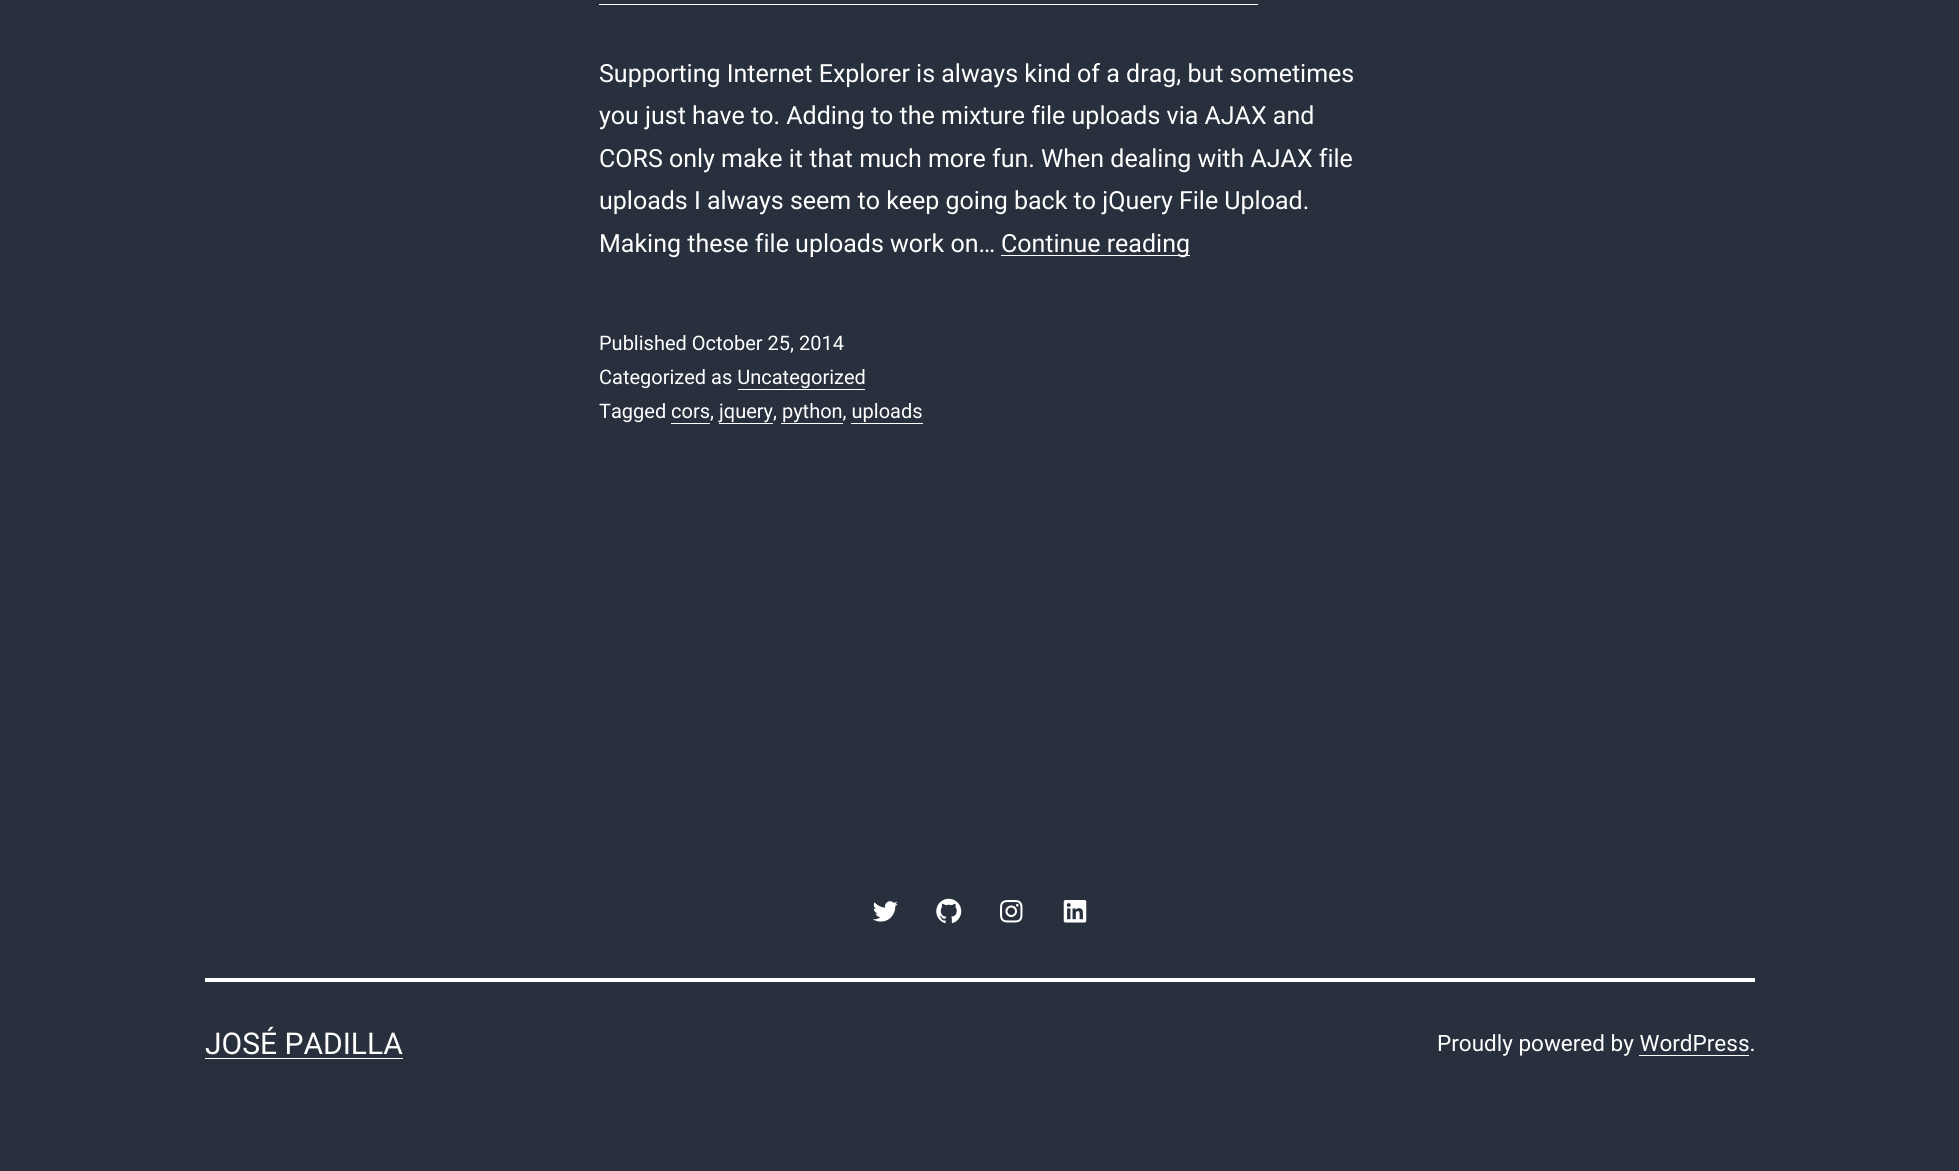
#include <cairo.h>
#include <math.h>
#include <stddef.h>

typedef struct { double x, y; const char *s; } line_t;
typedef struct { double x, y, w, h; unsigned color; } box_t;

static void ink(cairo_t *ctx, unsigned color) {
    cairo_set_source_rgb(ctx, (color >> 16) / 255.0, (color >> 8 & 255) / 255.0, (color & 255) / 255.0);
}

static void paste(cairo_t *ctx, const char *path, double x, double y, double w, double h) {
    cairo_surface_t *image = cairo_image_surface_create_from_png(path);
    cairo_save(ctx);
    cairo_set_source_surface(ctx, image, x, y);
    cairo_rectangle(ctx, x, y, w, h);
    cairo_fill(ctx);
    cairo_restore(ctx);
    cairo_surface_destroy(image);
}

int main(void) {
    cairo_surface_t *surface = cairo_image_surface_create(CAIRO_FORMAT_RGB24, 1959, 1171);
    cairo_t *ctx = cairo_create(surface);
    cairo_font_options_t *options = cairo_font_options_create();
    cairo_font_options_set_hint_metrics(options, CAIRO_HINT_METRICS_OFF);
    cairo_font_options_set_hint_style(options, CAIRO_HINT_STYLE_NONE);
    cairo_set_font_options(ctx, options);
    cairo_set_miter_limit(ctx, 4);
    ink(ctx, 0x28303D);
    cairo_paint(ctx);
    ink(ctx, 0xFFFFFF);
    cairo_rectangle(ctx, 599, 4, 659, 1);
    cairo_fill(ctx);
    cairo_select_font_face(ctx, "Roboto", CAIRO_FONT_SLANT_NORMAL, CAIRO_FONT_WEIGHT_NORMAL);
    cairo_set_font_size(ctx, 25);
    {
        static const line_t items[] = {
            {599, 82, "Supporting Internet Explorer is always kind of a drag, but sometimes"},
            {599, 124, "you just have to. Adding to the mixture file uploads via AJAX and"},
            {599, 167, "CORS only make it that much more fun. When dealing with AJAX file"},
            {599, 209, "uploads I always seem to keep going back to jQuery File Upload."},
            {599, 252, "Making these file uploads work on…"},
        };
        for (size_t i = 0; i < sizeof items / sizeof *items; i++) {
            cairo_move_to(ctx, items[i].x, items[i].y);
            cairo_show_text(ctx, items[i].s);
        }
    }
    cairo_rectangle(ctx, 1001, 255, 189, 1);
    cairo_fill(ctx);
    cairo_move_to(ctx, 1001, 252);
    cairo_show_text(ctx, "Continue reading");
    cairo_set_font_size(ctx, 20);
    cairo_move_to(ctx, 599, 350);
    cairo_show_text(ctx, "Published October 25, 2014");
    cairo_move_to(ctx, 599, 384);
    cairo_show_text(ctx, "Categorized as Uncategorized");
    cairo_rectangle(ctx, 738, 389, 127, 1);
    cairo_fill(ctx);
    cairo_move_to(ctx, 599, 418);
    cairo_show_text(ctx, "Tagged cors, jquery, python, uploads");
    {
        static const box_t items[] = {
            {671, 423, 39, 1, 0xFFFFFF},
            {719, 423, 54, 1, 0xFFFFFF},
            {781, 423, 62, 1, 0xFFFFFF},
            {851, 423, 72, 1, 0xFFFFFF},
        };
        for (size_t i = 0; i < sizeof items / sizeof *items; i++) {
            ink(ctx, items[i].color);
            cairo_rectangle(ctx, items[i].x, items[i].y, items[i].w, items[i].h);
            cairo_fill(ctx);
        }
    }
    paste(ctx, "media/1.png", 873, 901, 25, 21);
    paste(ctx, "media/2.png", 936, 898, 26, 26);
    paste(ctx, "media/3.png", 1000, 900, 23, 23);
    paste(ctx, "media/4.png", 1063, 900, 24, 23);
    cairo_rectangle(ctx, 205, 978, 1550, 4);
    cairo_fill(ctx);
    cairo_set_font_size(ctx, 30);
    cairo_move_to(ctx, 205, 1054);
    cairo_show_text(ctx, "JOSÉ PADILLA");
    cairo_rectangle(ctx, 205, 1058, 198, 1);
    cairo_fill(ctx);
    cairo_set_font_size(ctx, 22.5);
    cairo_move_to(ctx, 1437, 1051);
    cairo_show_text(ctx, "Proudly powered by WordPress.");
    cairo_rectangle(ctx, 1639, 1055, 110, 1);
    cairo_fill(ctx);
    cairo_surface_write_to_png(surface, "image.png");
    cairo_font_options_destroy(options);
    cairo_destroy(ctx);
    cairo_surface_destroy(surface);
    return 0;
}
